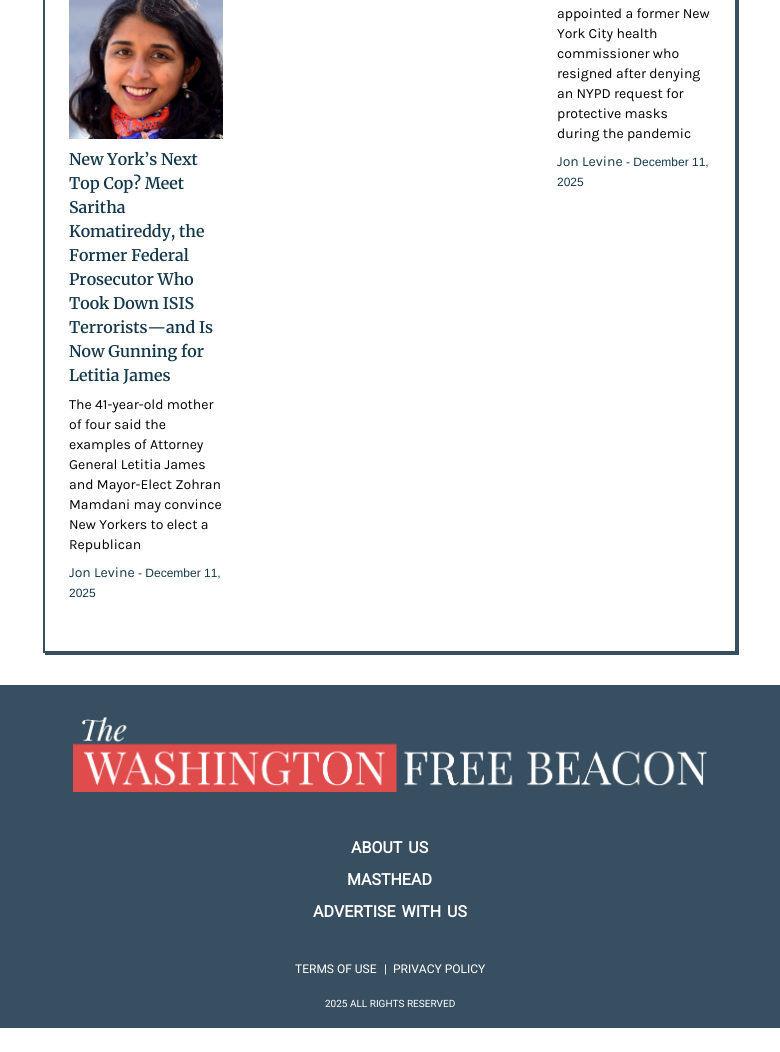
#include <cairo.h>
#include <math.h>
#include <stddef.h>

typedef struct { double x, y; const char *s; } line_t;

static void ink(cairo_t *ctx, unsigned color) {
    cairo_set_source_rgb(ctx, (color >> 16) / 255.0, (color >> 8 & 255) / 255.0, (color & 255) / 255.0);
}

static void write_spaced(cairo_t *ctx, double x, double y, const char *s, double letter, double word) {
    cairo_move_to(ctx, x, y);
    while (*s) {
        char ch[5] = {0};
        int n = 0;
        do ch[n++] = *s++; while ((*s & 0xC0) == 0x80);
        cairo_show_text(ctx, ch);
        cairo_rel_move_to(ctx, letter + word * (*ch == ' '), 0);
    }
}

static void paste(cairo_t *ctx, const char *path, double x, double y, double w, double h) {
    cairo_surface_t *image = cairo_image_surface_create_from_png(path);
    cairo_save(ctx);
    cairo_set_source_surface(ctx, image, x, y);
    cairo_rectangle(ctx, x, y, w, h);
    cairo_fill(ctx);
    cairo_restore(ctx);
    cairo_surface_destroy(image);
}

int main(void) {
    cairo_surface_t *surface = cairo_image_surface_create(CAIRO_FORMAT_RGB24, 780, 1052);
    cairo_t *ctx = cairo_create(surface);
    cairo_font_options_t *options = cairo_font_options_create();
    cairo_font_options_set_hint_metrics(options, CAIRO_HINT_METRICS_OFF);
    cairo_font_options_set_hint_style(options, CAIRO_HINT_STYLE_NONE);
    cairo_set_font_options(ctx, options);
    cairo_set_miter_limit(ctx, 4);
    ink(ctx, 0xFFFFFF);
    cairo_paint(ctx);
    ink(ctx, 0x384F61);
    cairo_new_path(ctx);
    cairo_move_to(ctx, 45, 653);
    cairo_line_to(ctx, 45, 655);
    cairo_line_to(ctx, 739, 655);
    cairo_line_to(ctx, 739, -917);
    cairo_line_to(ctx, 737, -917);
    cairo_line_to(ctx, 737, 653);
    cairo_close_path(ctx);
    cairo_fill(ctx);
    cairo_rectangle(ctx, 44, -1, 692, 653);
    cairo_stroke(ctx);
    cairo_select_font_face(ctx, "Karla", CAIRO_FONT_SLANT_NORMAL, CAIRO_FONT_WEIGHT_NORMAL);
    cairo_set_font_size(ctx, 14);
    ink(ctx, 0x000000);
    {
        static const line_t items[] = {
            {557, 18, "appointed a former New"},
            {557, 38, "York City health"},
            {557, 58, "commissioner who"},
            {557, 78, "resigned after denying"},
            {557, 98, "an NYPD request for"},
            {557, 118, "protective masks"},
            {557, 138, "during the pandemic"},
        };
        for (size_t i = 0; i < sizeof items / sizeof *items; i++) {
            cairo_move_to(ctx, items[i].x, items[i].y);
            cairo_show_text(ctx, items[i].s);
        }
    }
    ink(ctx, 0x13384A);
    cairo_move_to(ctx, 557, 166);
    cairo_show_text(ctx, "Jon Levine");
    cairo_select_font_face(ctx, "Liberation Sans", CAIRO_FONT_SLANT_NORMAL, CAIRO_FONT_WEIGHT_NORMAL);
    cairo_set_font_size(ctx, 12);
    cairo_move_to(ctx, 626, 166);
    cairo_show_text(ctx, "- December 11,");
    cairo_move_to(ctx, 557, 186);
    cairo_show_text(ctx, "2025");
    paste(ctx, "media/1.png", 69, 0, 154, 139);
    cairo_select_font_face(ctx, "Merriweather SemiBold", CAIRO_FONT_SLANT_NORMAL, CAIRO_FONT_WEIGHT_NORMAL);
    cairo_set_font_size(ctx, 16);
    {
        static const line_t items[] = {
            {69, 165, "New York’s Next"},
            {69, 189, "Top Cop? Meet"},
            {69, 213, "Saritha"},
            {69, 237, "Komatireddy, the"},
            {69, 261, "Former Federal"},
            {69, 285, "Prosecutor Who"},
            {69, 309, "Took Down ISIS"},
            {69, 333, "Terrorists—and Is"},
            {69, 357, "Now Gunning for"},
            {69, 381, "Letitia James"},
        };
        for (size_t i = 0; i < sizeof items / sizeof *items; i++) {
            cairo_move_to(ctx, items[i].x, items[i].y);
            cairo_show_text(ctx, items[i].s);
        }
    }
    cairo_select_font_face(ctx, "Karla", CAIRO_FONT_SLANT_NORMAL, CAIRO_FONT_WEIGHT_NORMAL);
    cairo_set_font_size(ctx, 14);
    ink(ctx, 0x000000);
    {
        static const line_t items[] = {
            {69, 409, "The 41-year-old mother"},
            {69, 429, "of four said the"},
            {69, 449, "examples of Attorney"},
            {69, 469, "General Letitia James"},
            {69, 489, "and Mayor-Elect Zohran"},
            {69, 509, "Mamdani may convince"},
            {69, 529, "New Yorkers to elect a"},
            {69, 549, "Republican"},
        };
        for (size_t i = 0; i < sizeof items / sizeof *items; i++) {
            cairo_move_to(ctx, items[i].x, items[i].y);
            cairo_show_text(ctx, items[i].s);
        }
    }
    ink(ctx, 0x13384A);
    cairo_move_to(ctx, 69, 577);
    cairo_show_text(ctx, "Jon Levine");
    cairo_select_font_face(ctx, "Liberation Sans", CAIRO_FONT_SLANT_NORMAL, CAIRO_FONT_WEIGHT_NORMAL);
    cairo_set_font_size(ctx, 12);
    cairo_move_to(ctx, 138, 577);
    cairo_show_text(ctx, "- December 11,");
    cairo_move_to(ctx, 69, 597);
    cairo_show_text(ctx, "2025");
    ink(ctx, 0x384F61);
    cairo_rectangle(ctx, 0, 685, 780, 343);
    cairo_fill(ctx);
    paste(ctx, "media/2.png", 73, 717, 634, 75);
    cairo_select_font_face(ctx, "Roboto", CAIRO_FONT_SLANT_NORMAL, CAIRO_FONT_WEIGHT_BOLD);
    cairo_set_font_size(ctx, 16);
    ink(ctx, 0xFFFFFF);
    write_spaced(ctx, 351, 853, "ABOUT US", 0, 2);
    cairo_move_to(ctx, 347, 885);
    cairo_show_text(ctx, "MASTHEAD");
    write_spaced(ctx, 313, 917, "ADVERTISE WITH US", 0, 2);
    cairo_select_font_face(ctx, "Roboto", CAIRO_FONT_SLANT_NORMAL, CAIRO_FONT_WEIGHT_NORMAL);
    cairo_set_font_size(ctx, 12);
    {
        static const line_t items[] = {
            {295, 973, "TERMS OF USE"},
            {384, 973, "|"},
            {393, 973, "PRIVACY POLICY"},
        };
        for (size_t i = 0; i < sizeof items / sizeof *items; i++) {
            cairo_move_to(ctx, items[i].x, items[i].y);
            cairo_show_text(ctx, items[i].s);
        }
    }
    cairo_set_font_size(ctx, 10);
    cairo_move_to(ctx, 325, 1007);
    cairo_show_text(ctx, "2025 ALL RIGHTS RESERVED");
    cairo_surface_write_to_png(surface, "image.png");
    cairo_font_options_destroy(options);
    cairo_destroy(ctx);
    cairo_surface_destroy(surface);
    return 0;
}
